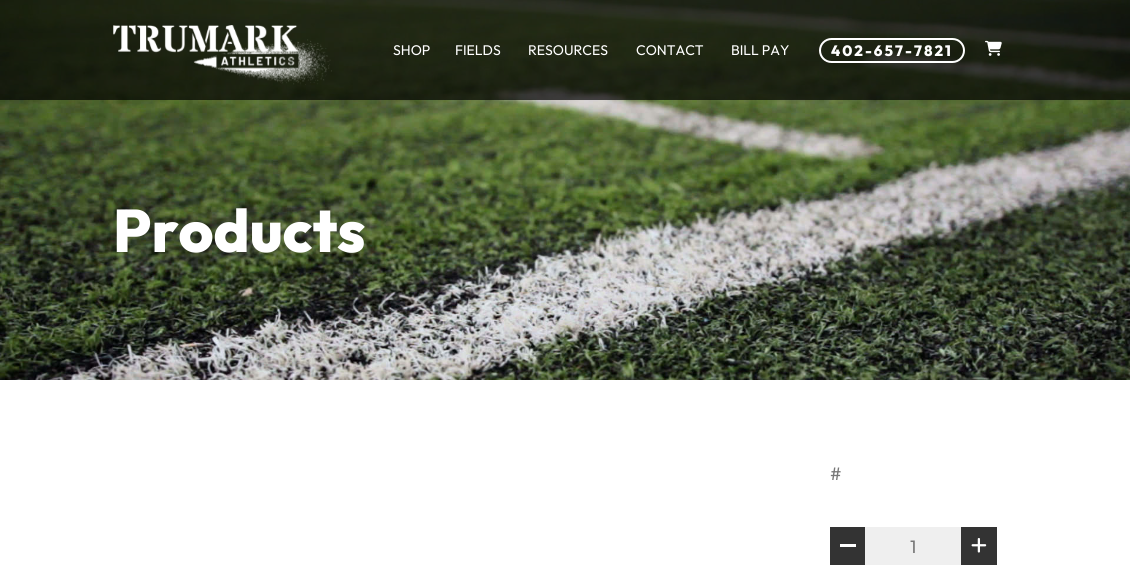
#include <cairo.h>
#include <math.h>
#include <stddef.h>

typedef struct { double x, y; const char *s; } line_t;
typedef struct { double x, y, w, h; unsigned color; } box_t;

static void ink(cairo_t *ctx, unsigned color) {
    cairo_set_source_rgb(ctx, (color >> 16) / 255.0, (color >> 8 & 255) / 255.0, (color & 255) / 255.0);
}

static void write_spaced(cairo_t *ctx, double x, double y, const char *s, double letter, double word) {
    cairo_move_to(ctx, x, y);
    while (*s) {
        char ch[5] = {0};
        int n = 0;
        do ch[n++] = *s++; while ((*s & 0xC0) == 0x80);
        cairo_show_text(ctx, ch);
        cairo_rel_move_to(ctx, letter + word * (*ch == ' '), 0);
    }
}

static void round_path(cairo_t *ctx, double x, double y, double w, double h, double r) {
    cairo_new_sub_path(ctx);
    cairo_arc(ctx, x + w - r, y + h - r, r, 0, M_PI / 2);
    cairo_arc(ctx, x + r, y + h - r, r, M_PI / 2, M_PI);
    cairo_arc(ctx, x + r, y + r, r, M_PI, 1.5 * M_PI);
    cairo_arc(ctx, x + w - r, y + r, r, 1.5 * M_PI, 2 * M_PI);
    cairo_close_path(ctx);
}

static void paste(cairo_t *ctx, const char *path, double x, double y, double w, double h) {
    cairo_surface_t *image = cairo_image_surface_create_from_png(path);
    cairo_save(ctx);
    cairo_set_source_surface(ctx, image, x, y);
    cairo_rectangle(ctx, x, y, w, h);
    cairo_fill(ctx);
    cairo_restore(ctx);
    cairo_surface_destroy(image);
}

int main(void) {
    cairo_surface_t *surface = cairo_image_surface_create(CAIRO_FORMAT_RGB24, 1130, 565);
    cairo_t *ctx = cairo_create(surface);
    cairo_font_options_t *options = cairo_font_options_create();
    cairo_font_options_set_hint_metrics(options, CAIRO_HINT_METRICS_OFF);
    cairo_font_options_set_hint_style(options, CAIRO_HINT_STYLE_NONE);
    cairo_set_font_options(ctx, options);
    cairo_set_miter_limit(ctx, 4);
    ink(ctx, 0xFFFFFF);
    cairo_paint(ctx);
    paste(ctx, "media/1.png", 0, 0, 1130, 380);
    cairo_set_source_rgba(ctx, 0, 0, 0, 0.7);
    cairo_rectangle(ctx, 0, 0, 1130, 100);
    cairo_fill(ctx);
    paste(ctx, "media/2.png", 113, 25, 219, 60);
    cairo_select_font_face(ctx, "Outfit", CAIRO_FONT_SLANT_NORMAL, CAIRO_FONT_WEIGHT_NORMAL);
    cairo_set_font_size(ctx, 14);
    ink(ctx, 0xFFFFFF);
    {
        static const line_t items[] = {
            {393, 55, "SHOP"},
            {455, 55, "FIELDS"},
            {528, 55, "RESOURCES"},
            {636, 55, "CONTACT"},
            {731, 55, "BILL PAY"},
        };
        for (size_t i = 0; i < sizeof items / sizeof *items; i++) {
            cairo_move_to(ctx, items[i].x, items[i].y);
            cairo_show_text(ctx, items[i].s);
        }
    }
    round_path(ctx, 820, 39, 144, 23, 11.5);
    cairo_stroke(ctx);
    cairo_select_font_face(ctx, "Outfit ExtraBold", CAIRO_FONT_SLANT_NORMAL, CAIRO_FONT_WEIGHT_NORMAL);
    cairo_set_font_size(ctx, 15);
    write_spaced(ctx, 831, 56, "402-657-7821", 2, 0);
    paste(ctx, "media/3.png", 985, 40, 17, 16);
    cairo_set_font_size(ctx, 60);
    cairo_move_to(ctx, 113, 252);
    cairo_show_text(ctx, "Products");
    cairo_select_font_face(ctx, "Outfit", CAIRO_FONT_SLANT_NORMAL, CAIRO_FONT_WEIGHT_NORMAL);
    cairo_set_font_size(ctx, 18);
    ink(ctx, 0x777777);
    cairo_move_to(ctx, 830, 480);
    cairo_show_text(ctx, "#");
    {
        static const box_t items[] = {
            {830, 527, 35, 38, 0x333333},
            {840, 544, 16, 3, 0xFFFFFF},
            {865, 527, 96, 38, 0xEFEFEF},
        };
        for (size_t i = 0; i < sizeof items / sizeof *items; i++) {
            ink(ctx, items[i].color);
            cairo_rectangle(ctx, items[i].x, items[i].y, items[i].w, items[i].h);
            cairo_fill(ctx);
        }
    }
    ink(ctx, 0x777777);
    cairo_move_to(ctx, 910, 553);
    cairo_show_text(ctx, "1");
    ink(ctx, 0x333333);
    cairo_rectangle(ctx, 961, 527, 36, 38);
    cairo_fill(ctx);
    paste(ctx, "media/4.png", 971, 538, 16, 15);
    cairo_surface_write_to_png(surface, "image.png");
    cairo_font_options_destroy(options);
    cairo_destroy(ctx);
    cairo_surface_destroy(surface);
    return 0;
}
